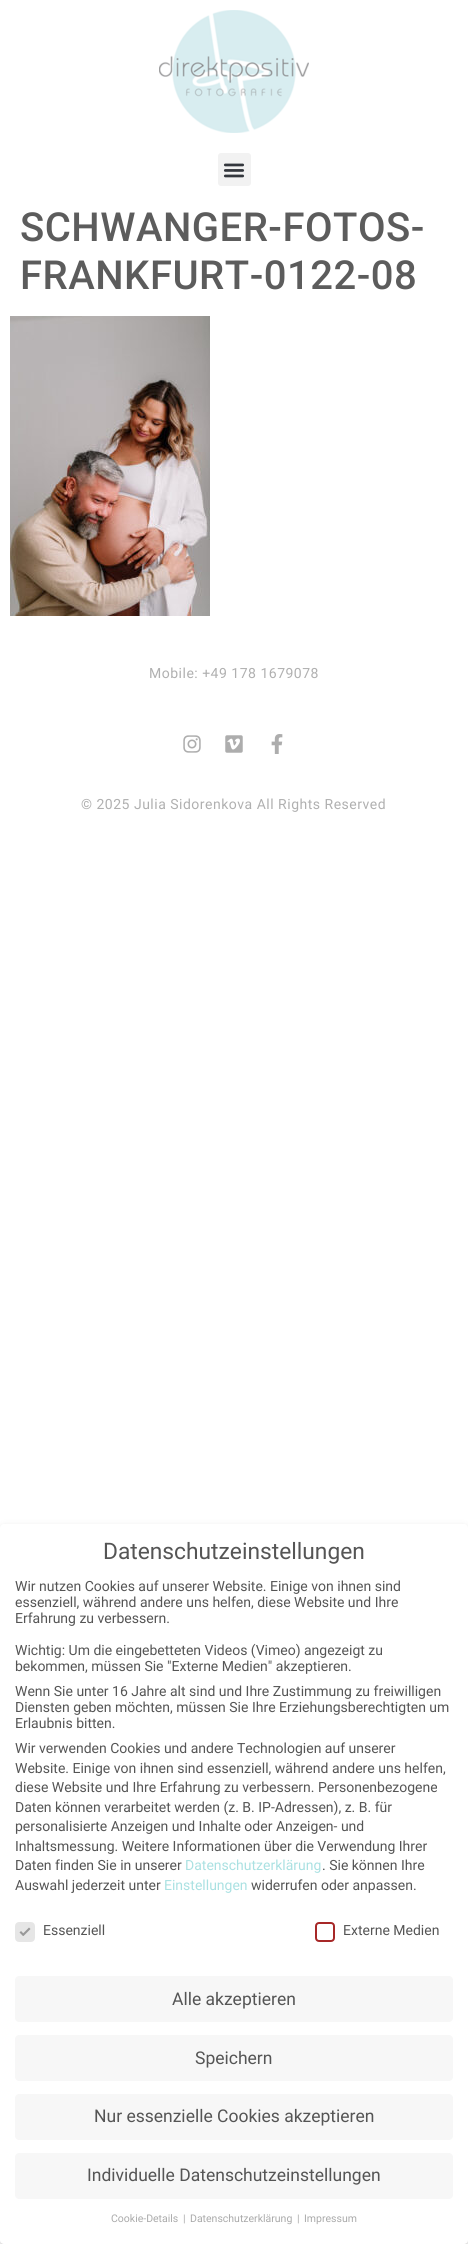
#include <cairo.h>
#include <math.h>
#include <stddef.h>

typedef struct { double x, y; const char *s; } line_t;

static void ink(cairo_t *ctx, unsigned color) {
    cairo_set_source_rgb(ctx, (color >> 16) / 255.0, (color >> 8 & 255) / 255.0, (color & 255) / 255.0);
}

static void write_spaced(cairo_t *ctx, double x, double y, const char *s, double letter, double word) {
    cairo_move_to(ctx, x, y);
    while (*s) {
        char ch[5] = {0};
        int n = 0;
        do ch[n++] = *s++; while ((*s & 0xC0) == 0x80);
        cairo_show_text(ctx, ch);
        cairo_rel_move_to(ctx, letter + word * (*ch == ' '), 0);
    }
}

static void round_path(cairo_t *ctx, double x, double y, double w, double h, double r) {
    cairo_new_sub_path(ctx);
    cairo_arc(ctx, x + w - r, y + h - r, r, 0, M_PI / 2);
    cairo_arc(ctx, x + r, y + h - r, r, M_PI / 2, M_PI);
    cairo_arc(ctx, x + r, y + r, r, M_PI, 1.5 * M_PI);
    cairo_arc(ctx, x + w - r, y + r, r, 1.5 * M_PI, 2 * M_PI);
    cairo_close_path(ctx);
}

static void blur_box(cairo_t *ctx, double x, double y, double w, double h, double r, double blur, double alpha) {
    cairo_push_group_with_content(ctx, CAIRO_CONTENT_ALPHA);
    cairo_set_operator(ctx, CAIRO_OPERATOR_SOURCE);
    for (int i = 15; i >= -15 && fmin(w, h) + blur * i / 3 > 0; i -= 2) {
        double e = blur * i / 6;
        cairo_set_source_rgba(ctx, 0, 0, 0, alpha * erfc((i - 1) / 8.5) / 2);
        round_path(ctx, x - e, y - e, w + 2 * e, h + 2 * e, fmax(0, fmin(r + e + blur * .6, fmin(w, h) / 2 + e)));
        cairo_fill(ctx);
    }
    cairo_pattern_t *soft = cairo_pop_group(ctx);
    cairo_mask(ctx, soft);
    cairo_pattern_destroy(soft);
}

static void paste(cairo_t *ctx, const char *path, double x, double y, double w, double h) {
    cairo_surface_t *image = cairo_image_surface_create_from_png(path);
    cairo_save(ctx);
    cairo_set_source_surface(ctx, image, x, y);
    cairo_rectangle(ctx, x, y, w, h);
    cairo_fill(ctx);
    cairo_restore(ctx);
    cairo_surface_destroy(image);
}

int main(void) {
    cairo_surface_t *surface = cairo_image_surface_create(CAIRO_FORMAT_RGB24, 468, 2244);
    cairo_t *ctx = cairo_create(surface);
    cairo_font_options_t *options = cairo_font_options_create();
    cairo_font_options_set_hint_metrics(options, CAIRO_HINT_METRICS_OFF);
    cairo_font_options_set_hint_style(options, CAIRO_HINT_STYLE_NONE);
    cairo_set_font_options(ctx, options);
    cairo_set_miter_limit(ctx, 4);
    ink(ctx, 0xFFFFFF);
    cairo_paint(ctx);
    paste(ctx, "media/1.png", 159, 10, 150, 123);
    ink(ctx, 0xF2F2F2);
    round_path(ctx, 218, 153, 33, 33, 3);
    cairo_fill(ctx);
    paste(ctx, "media/2.png", 223, 163, 22, 15);
    cairo_select_font_face(ctx, "Roboto Medium", CAIRO_FONT_SLANT_NORMAL, CAIRO_FONT_WEIGHT_NORMAL);
    cairo_set_font_size(ctx, 40);
    ink(ctx, 0x5C5C5C);
    write_spaced(ctx, 20, 241, "SCHWANGER-FOTOS-", 0.5, 0);
    write_spaced(ctx, 20, 289, "FRANKFURT-0122-08", 0.5, 0);
    paste(ctx, "media/3.png", 10, 316, 200, 300);
    cairo_select_font_face(ctx, "Roboto", CAIRO_FONT_SLANT_NORMAL, CAIRO_FONT_WEIGHT_NORMAL);
    cairo_set_font_size(ctx, 14);
    ink(ctx, 0xB0B0B0);
    write_spaced(ctx, 149, 678, "Mobile: +49 178 1679078", 0.5, 0);
    paste(ctx, "media/4.png", 183, 735, 18, 18);
    paste(ctx, "media/5.png", 225, 735, 18, 18);
    paste(ctx, "media/6.png", 271, 734, 12, 20);
    write_spaced(ctx, 81, 809, "© 2025 Julia Sidorenkova All Rights Reserved", 0.5, 0);
    ink(ctx, 0x000000);
    blur_box(ctx, 0, 1528, 468, 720, 4, 4, 0.2);
    ink(ctx, 0xFFFFFF);
    round_path(ctx, 0, 1524, 468, 720, 4);
    cairo_fill(ctx);
    cairo_set_font_size(ctx, 22.75);
    ink(ctx, 0x555555);
    cairo_move_to(ctx, 103, 1559);
    cairo_show_text(ctx, "Datenschutzeinstellungen");
    cairo_set_font_size(ctx, 14);
    {
        static const line_t items[] = {
            {15, 1591, "Wir nutzen Cookies auf unserer Website. Einige von ihnen sind"},
            {15, 1607, "essenziell, während andere uns helfen, diese Website und Ihre"},
            {15, 1623, "Erfahrung zu verbessern."},
            {15, 1655, "Wichtig: Um die eingebetteten Videos (Vimeo) angezeigt zu"},
            {15, 1671, "bekommen, müssen Sie \"Externe Medien\" akzeptieren."},
            {15, 1696, "Wenn Sie unter 16 Jahre alt sind und Ihre Zustimmung zu freiwilligen"},
            {15, 1712, "Diensten geben möchten, müssen Sie Ihre Erziehungsberechtigten um"},
            {15, 1728, "Erlaubnis bitten."},
            {15, 1753, "Wir verwenden Cookies und andere Technologien auf unserer"},
            {15, 1773, "Website. Einige von ihnen sind essenziell, während andere uns helfen,"},
            {15, 1792, "diese Website und Ihre Erfahrung zu verbessern. Personenbezogene"},
            {15, 1812, "Daten können verarbeitet werden (z. B. IP-Adressen), z. B. für"},
            {15, 1831, "personalisierte Anzeigen und Inhalte oder Anzeigen- und"},
            {15, 1851, "Inhaltsmessung. Weitere Informationen über die Verwendung Ihrer"},
            {15, 1870, "Daten finden Sie in unserer"},
        };
        for (size_t i = 0; i < sizeof items / sizeof *items; i++) {
            cairo_move_to(ctx, items[i].x, items[i].y);
            cairo_show_text(ctx, items[i].s);
        }
    }
    ink(ctx, 0xAAE1E2);
    cairo_move_to(ctx, 185, 1870);
    cairo_show_text(ctx, "Datenschutzerklärung");
    ink(ctx, 0x555555);
    cairo_move_to(ctx, 322, 1870);
    cairo_show_text(ctx, ". Sie können Ihre");
    cairo_move_to(ctx, 15, 1890);
    cairo_show_text(ctx, "Auswahl jederzeit unter");
    ink(ctx, 0xAAE1E2);
    cairo_move_to(ctx, 164, 1890);
    cairo_show_text(ctx, "Einstellungen");
    ink(ctx, 0x555555);
    cairo_move_to(ctx, 251, 1890);
    cairo_show_text(ctx, "widerrufen oder anpassen.");
    ink(ctx, 0xE6E6E6);
    round_path(ctx, 16, 1923, 18, 18, 3);
    cairo_fill_preserve(ctx);
    cairo_stroke(ctx);
    ink(ctx, 0x999999);
    cairo_new_path(ctx);
    cairo_move_to(ctx, 29, 1927.5);
    cairo_line_to(ctx, 30.5, 1929);
    cairo_line_to(ctx, 23.5, 1936);
    cairo_line_to(ctx, 22, 1934.5);
    cairo_close_path(ctx);
    cairo_fill(ctx);
    cairo_new_path(ctx);
    cairo_move_to(ctx, 21, 1931);
    cairo_line_to(ctx, 24.5, 1934.5);
    cairo_line_to(ctx, 23, 1936);
    cairo_line_to(ctx, 19.5, 1932.5);
    cairo_close_path(ctx);
    cairo_fill(ctx);
    ink(ctx, 0x555555);
    cairo_move_to(ctx, 43, 1935);
    cairo_show_text(ctx, "Essenziell");
    round_path(ctx, 316, 1923, 18, 18, 3);
    ink(ctx, 0xA72828);
    cairo_stroke(ctx);
    ink(ctx, 0x555555);
    cairo_move_to(ctx, 343, 1935);
    cairo_show_text(ctx, "Externe Medien");
    ink(ctx, 0xF7F7F7);
    round_path(ctx, 15, 1976, 438, 46, 4);
    cairo_fill(ctx);
    cairo_set_font_size(ctx, 17.5);
    ink(ctx, 0x555555);
    cairo_move_to(ctx, 172, 2005);
    cairo_show_text(ctx, "Alle akzeptieren");
    ink(ctx, 0xF7F7F7);
    round_path(ctx, 15, 2035, 438, 46, 4);
    cairo_fill(ctx);
    ink(ctx, 0x555555);
    cairo_move_to(ctx, 195, 2064);
    cairo_show_text(ctx, "Speichern");
    ink(ctx, 0xF7F7F7);
    round_path(ctx, 15, 2094, 438, 46, 4);
    cairo_fill(ctx);
    ink(ctx, 0x555555);
    cairo_move_to(ctx, 94, 2122);
    cairo_show_text(ctx, "Nur essenzielle Cookies akzeptieren");
    ink(ctx, 0xF7F7F7);
    round_path(ctx, 15, 2153, 438, 46, 4);
    cairo_fill(ctx);
    ink(ctx, 0x555555);
    cairo_move_to(ctx, 87, 2181);
    cairo_show_text(ctx, "Individuelle Datenschutzeinstellungen");
    cairo_set_font_size(ctx, 10.5);
    ink(ctx, 0xAAAAAA);
    {
        static const line_t items[] = {
            {111, 2222, "Cookie-Details"},
            {183, 2222, "|"},
            {190, 2222, "Datenschutzerklärung"},
            {297, 2222, "|"},
            {304, 2222, "Impressum"},
        };
        for (size_t i = 0; i < sizeof items / sizeof *items; i++) {
            cairo_move_to(ctx, items[i].x, items[i].y);
            cairo_show_text(ctx, items[i].s);
        }
    }
    cairo_surface_write_to_png(surface, "image.png");
    cairo_font_options_destroy(options);
    cairo_destroy(ctx);
    cairo_surface_destroy(surface);
    return 0;
}
